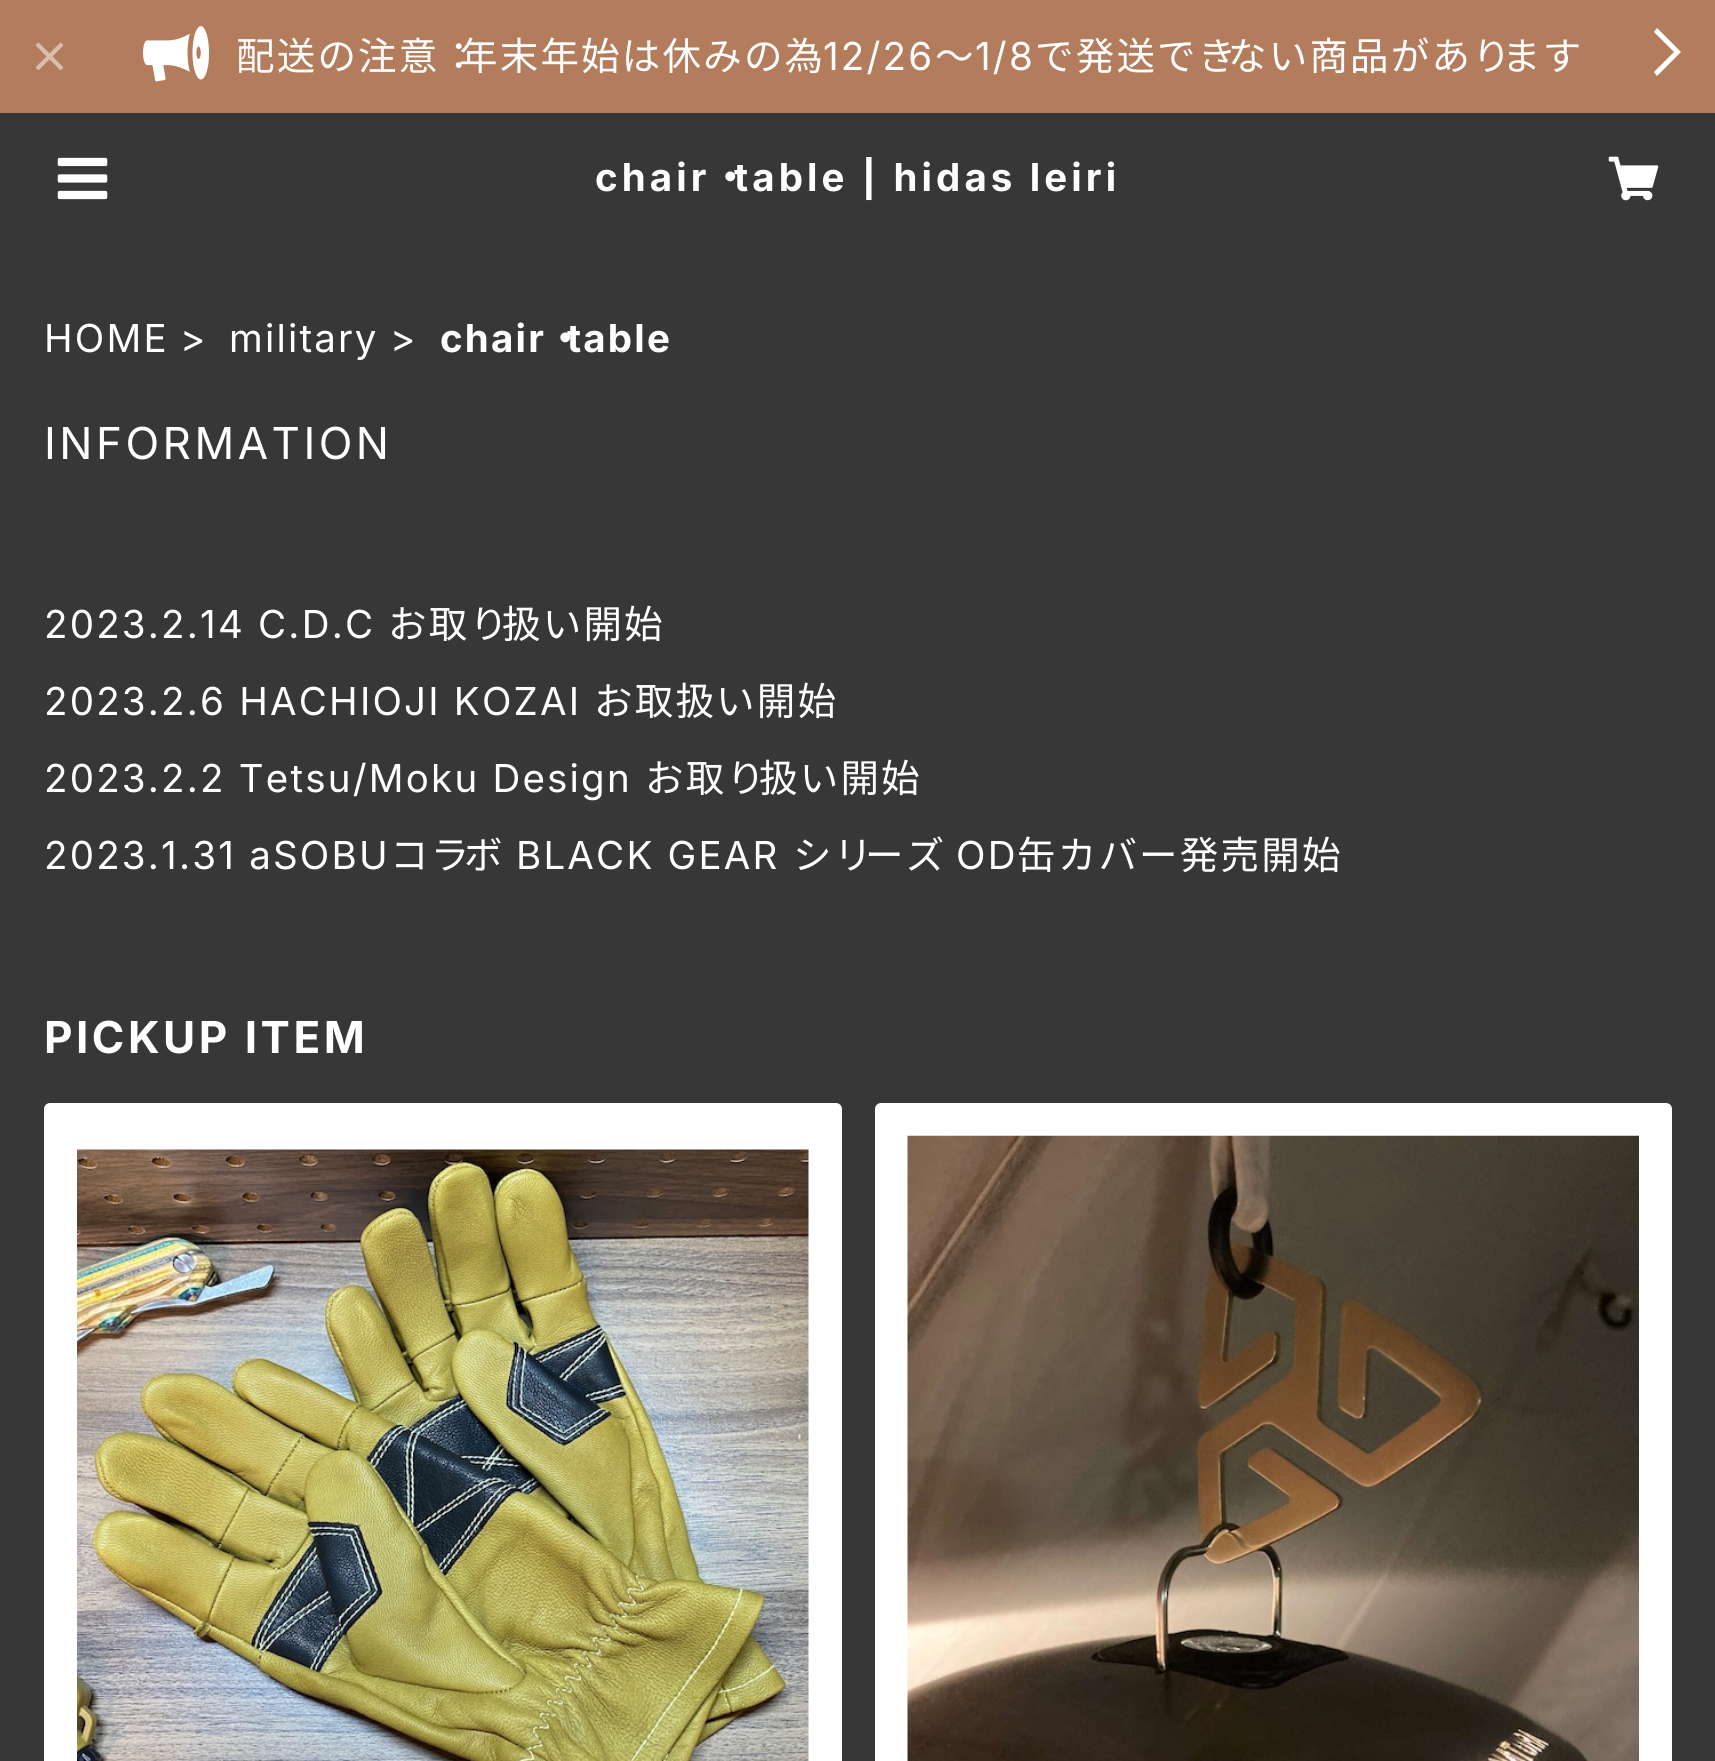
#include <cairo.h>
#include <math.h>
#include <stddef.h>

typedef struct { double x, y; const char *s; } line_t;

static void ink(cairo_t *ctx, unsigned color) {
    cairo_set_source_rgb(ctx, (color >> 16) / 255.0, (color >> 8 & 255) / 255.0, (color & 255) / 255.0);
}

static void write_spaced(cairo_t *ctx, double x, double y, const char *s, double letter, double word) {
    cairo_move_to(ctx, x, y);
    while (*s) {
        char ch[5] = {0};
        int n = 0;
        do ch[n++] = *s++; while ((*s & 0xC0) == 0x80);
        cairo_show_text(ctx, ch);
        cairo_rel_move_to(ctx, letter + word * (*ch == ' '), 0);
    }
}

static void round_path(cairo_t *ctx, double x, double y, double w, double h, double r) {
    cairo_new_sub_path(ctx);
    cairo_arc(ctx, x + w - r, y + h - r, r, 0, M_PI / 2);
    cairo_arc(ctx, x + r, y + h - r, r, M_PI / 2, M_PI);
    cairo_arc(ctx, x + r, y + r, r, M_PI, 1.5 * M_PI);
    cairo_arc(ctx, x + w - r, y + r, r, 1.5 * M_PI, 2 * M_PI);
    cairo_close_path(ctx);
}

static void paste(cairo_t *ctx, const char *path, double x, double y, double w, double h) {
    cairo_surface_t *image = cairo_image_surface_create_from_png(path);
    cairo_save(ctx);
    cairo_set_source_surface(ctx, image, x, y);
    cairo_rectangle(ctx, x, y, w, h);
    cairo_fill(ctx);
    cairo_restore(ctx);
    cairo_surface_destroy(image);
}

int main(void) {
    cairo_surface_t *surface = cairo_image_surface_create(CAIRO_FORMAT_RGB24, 1715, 1761);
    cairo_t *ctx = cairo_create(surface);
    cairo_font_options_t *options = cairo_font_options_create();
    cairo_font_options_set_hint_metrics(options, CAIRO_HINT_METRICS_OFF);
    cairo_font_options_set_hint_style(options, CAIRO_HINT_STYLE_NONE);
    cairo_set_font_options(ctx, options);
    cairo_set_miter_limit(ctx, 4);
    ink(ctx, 0x383737);
    cairo_paint(ctx);
    ink(ctx, 0xB37D5D);
    cairo_rectangle(ctx, 0, 0, 1715, 113);
    cairo_fill(ctx);
    paste(ctx, "media/1.png", 35, 42, 29, 29);
    paste(ctx, "media/2.png", 143, 26, 66, 56);
    cairo_select_font_face(ctx, "Noto Sans JP", CAIRO_FONT_SLANT_NORMAL, CAIRO_FONT_WEIGHT_NORMAL);
    cairo_set_font_size(ctx, 38.5);
    ink(ctx, 0xFFFFFF);
    write_spaced(ctx, 236, 70, "配送の注意：", 2.2, 0);
    write_spaced(ctx, 459, 70, "年末年始は休みの為", 2.2, 0);
    cairo_select_font_face(ctx, "Inter", CAIRO_FONT_SLANT_NORMAL, CAIRO_FONT_WEIGHT_NORMAL);
    write_spaced(ctx, 823, 70, "12/26", 2.2, 0);
    cairo_select_font_face(ctx, "Noto Sans JP", CAIRO_FONT_SLANT_NORMAL, CAIRO_FONT_WEIGHT_NORMAL);
    write_spaced(ctx, 935, 70, "〜", 2.2, 0);
    cairo_select_font_face(ctx, "Inter", CAIRO_FONT_SLANT_NORMAL, CAIRO_FONT_WEIGHT_NORMAL);
    write_spaced(ctx, 975, 70, "1/8", 2.2, 0);
    cairo_select_font_face(ctx, "Noto Sans JP", CAIRO_FONT_SLANT_NORMAL, CAIRO_FONT_WEIGHT_NORMAL);
    write_spaced(ctx, 1035, 70, "で発送でき", 2.2, 0);
    write_spaced(ctx, 1228, 70, "ない商品があり", 2.2, 0);
    write_spaced(ctx, 1502, 70, "ます", 2.2, 0);
    cairo_new_path(ctx);
    cairo_move_to(ctx, 1674, 52);
    cairo_line_to(ctx, 1654, 32);
    cairo_line_to(ctx, 1657, 28);
    cairo_line_to(ctx, 1681, 52);
    cairo_line_to(ctx, 1657, 76);
    cairo_line_to(ctx, 1654, 72);
    cairo_close_path(ctx);
    cairo_fill(ctx);
    paste(ctx, "media/3.png", 57, 157, 51, 43);
    cairo_select_font_face(ctx, "Inter", CAIRO_FONT_SLANT_NORMAL, CAIRO_FONT_WEIGHT_BOLD);
    write_spaced(ctx, 595, 191, "chair", 4.1, 0);
    cairo_select_font_face(ctx, "Noto Sans JP", CAIRO_FONT_SLANT_NORMAL, CAIRO_FONT_WEIGHT_BOLD);
    write_spaced(ctx, 711, 191, "・", 4.1, 0);
    cairo_save(ctx);
    cairo_rectangle(ctx, 594, 157, 528, 44);
    cairo_clip(ctx);
    cairo_select_font_face(ctx, "Inter", CAIRO_FONT_SLANT_NORMAL, CAIRO_FONT_WEIGHT_BOLD);
    write_spaced(ctx, 734, 191, "table | hidas leiri", 4.1, 0);
    cairo_restore(ctx);
    paste(ctx, "media/4.png", 1608, 156, 51, 45);
    cairo_select_font_face(ctx, "Inter", CAIRO_FONT_SLANT_NORMAL, CAIRO_FONT_WEIGHT_NORMAL);
    {
        static const line_t items[] = {
            {44, 352, "HOME"},
            {180, 352, ">"},
            {229, 352, "military"},
            {390, 352, ">"},
        };
        for (size_t i = 0; i < sizeof items / sizeof *items; i++) {
            write_spaced(ctx, items[i].x, items[i].y, items[i].s, 2.2, 0);
        }
    }
    cairo_select_font_face(ctx, "Inter", CAIRO_FONT_SLANT_NORMAL, CAIRO_FONT_WEIGHT_BOLD);
    write_spaced(ctx, 440, 352, "chair", 2.2, 0);
    cairo_select_font_face(ctx, "Noto Sans JP", CAIRO_FONT_SLANT_NORMAL, CAIRO_FONT_WEIGHT_BOLD);
    write_spaced(ctx, 546, 352, "・", 2.2, 0);
    cairo_select_font_face(ctx, "Inter", CAIRO_FONT_SLANT_NORMAL, CAIRO_FONT_WEIGHT_BOLD);
    write_spaced(ctx, 567, 352, "table", 2.2, 0);
    cairo_select_font_face(ctx, "Inter", CAIRO_FONT_SLANT_NORMAL, CAIRO_FONT_WEIGHT_NORMAL);
    cairo_set_font_size(ctx, 44);
    write_spaced(ctx, 44, 459, "INFORMATION", 3.5, 0);
    cairo_set_font_size(ctx, 38.5);
    write_spaced(ctx, 44, 638, "2023.2.14 C.D.C", 2.2, 0);
    cairo_select_font_face(ctx, "Noto Sans JP", CAIRO_FONT_SLANT_NORMAL, CAIRO_FONT_WEIGHT_NORMAL);
    write_spaced(ctx, 388, 638, "お取り", 2.2, 0);
    write_spaced(ctx, 502, 638, "扱い開始", 2.2, 0);
    cairo_select_font_face(ctx, "Inter", CAIRO_FONT_SLANT_NORMAL, CAIRO_FONT_WEIGHT_NORMAL);
    write_spaced(ctx, 44, 715, "2023.2.6 HACHIOJI KOZAI", 2.2, 0);
    cairo_select_font_face(ctx, "Noto Sans JP", CAIRO_FONT_SLANT_NORMAL, CAIRO_FONT_WEIGHT_NORMAL);
    write_spaced(ctx, 594, 715, "お取扱い開始", 2.2, 0);
    cairo_select_font_face(ctx, "Inter", CAIRO_FONT_SLANT_NORMAL, CAIRO_FONT_WEIGHT_NORMAL);
    write_spaced(ctx, 44, 792, "2023.2.2 Tetsu/Moku Design", 2.2, 0);
    cairo_select_font_face(ctx, "Noto Sans JP", CAIRO_FONT_SLANT_NORMAL, CAIRO_FONT_WEIGHT_NORMAL);
    write_spaced(ctx, 645, 792, "お取り", 2.2, 0);
    write_spaced(ctx, 759, 792, "扱い開始", 2.2, 0);
    cairo_select_font_face(ctx, "Inter", CAIRO_FONT_SLANT_NORMAL, CAIRO_FONT_WEIGHT_NORMAL);
    write_spaced(ctx, 44, 869, "2023.1.31 aSOBU", 2.2, 0);
    cairo_select_font_face(ctx, "Noto Sans JP", CAIRO_FONT_SLANT_NORMAL, CAIRO_FONT_WEIGHT_NORMAL);
    write_spaced(ctx, 390, 869, "コラ", 2.2, 0);
    write_spaced(ctx, 464, 869, "ボ", 2.2, 0);
    cairo_select_font_face(ctx, "Inter", CAIRO_FONT_SLANT_NORMAL, CAIRO_FONT_WEIGHT_NORMAL);
    write_spaced(ctx, 516, 869, "BLACK GEAR", 2.2, 0);
    cairo_select_font_face(ctx, "Noto Sans JP", CAIRO_FONT_SLANT_NORMAL, CAIRO_FONT_WEIGHT_NORMAL);
    write_spaced(ctx, 793, 869, "シリ", 2.2, 0);
    write_spaced(ctx, 865, 869, "ーズ", 2.2, 0);
    cairo_select_font_face(ctx, "Inter", CAIRO_FONT_SLANT_NORMAL, CAIRO_FONT_WEIGHT_NORMAL);
    write_spaced(ctx, 956, 869, "OD", 2.2, 0);
    cairo_select_font_face(ctx, "Noto Sans JP", CAIRO_FONT_SLANT_NORMAL, CAIRO_FONT_WEIGHT_NORMAL);
    write_spaced(ctx, 1017, 869, "缶カバー発売開始", 2.2, 0);
    cairo_select_font_face(ctx, "Inter", CAIRO_FONT_SLANT_NORMAL, CAIRO_FONT_WEIGHT_BOLD);
    cairo_set_font_size(ctx, 44);
    write_spaced(ctx, 44, 1053, "PICKUP ITEM", 3.5, 0);
    round_path(ctx, 44, 1103, 798, 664, 6);
    cairo_fill(ctx);
    paste(ctx, "media/5.png", 77, 1149, 732, 612);
    round_path(ctx, 875, 1103, 797, 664, 6);
    cairo_fill(ctx);
    paste(ctx, "media/6.png", 907, 1135, 732, 626);
    cairo_surface_write_to_png(surface, "image.png");
    cairo_font_options_destroy(options);
    cairo_destroy(ctx);
    cairo_surface_destroy(surface);
    return 0;
}
